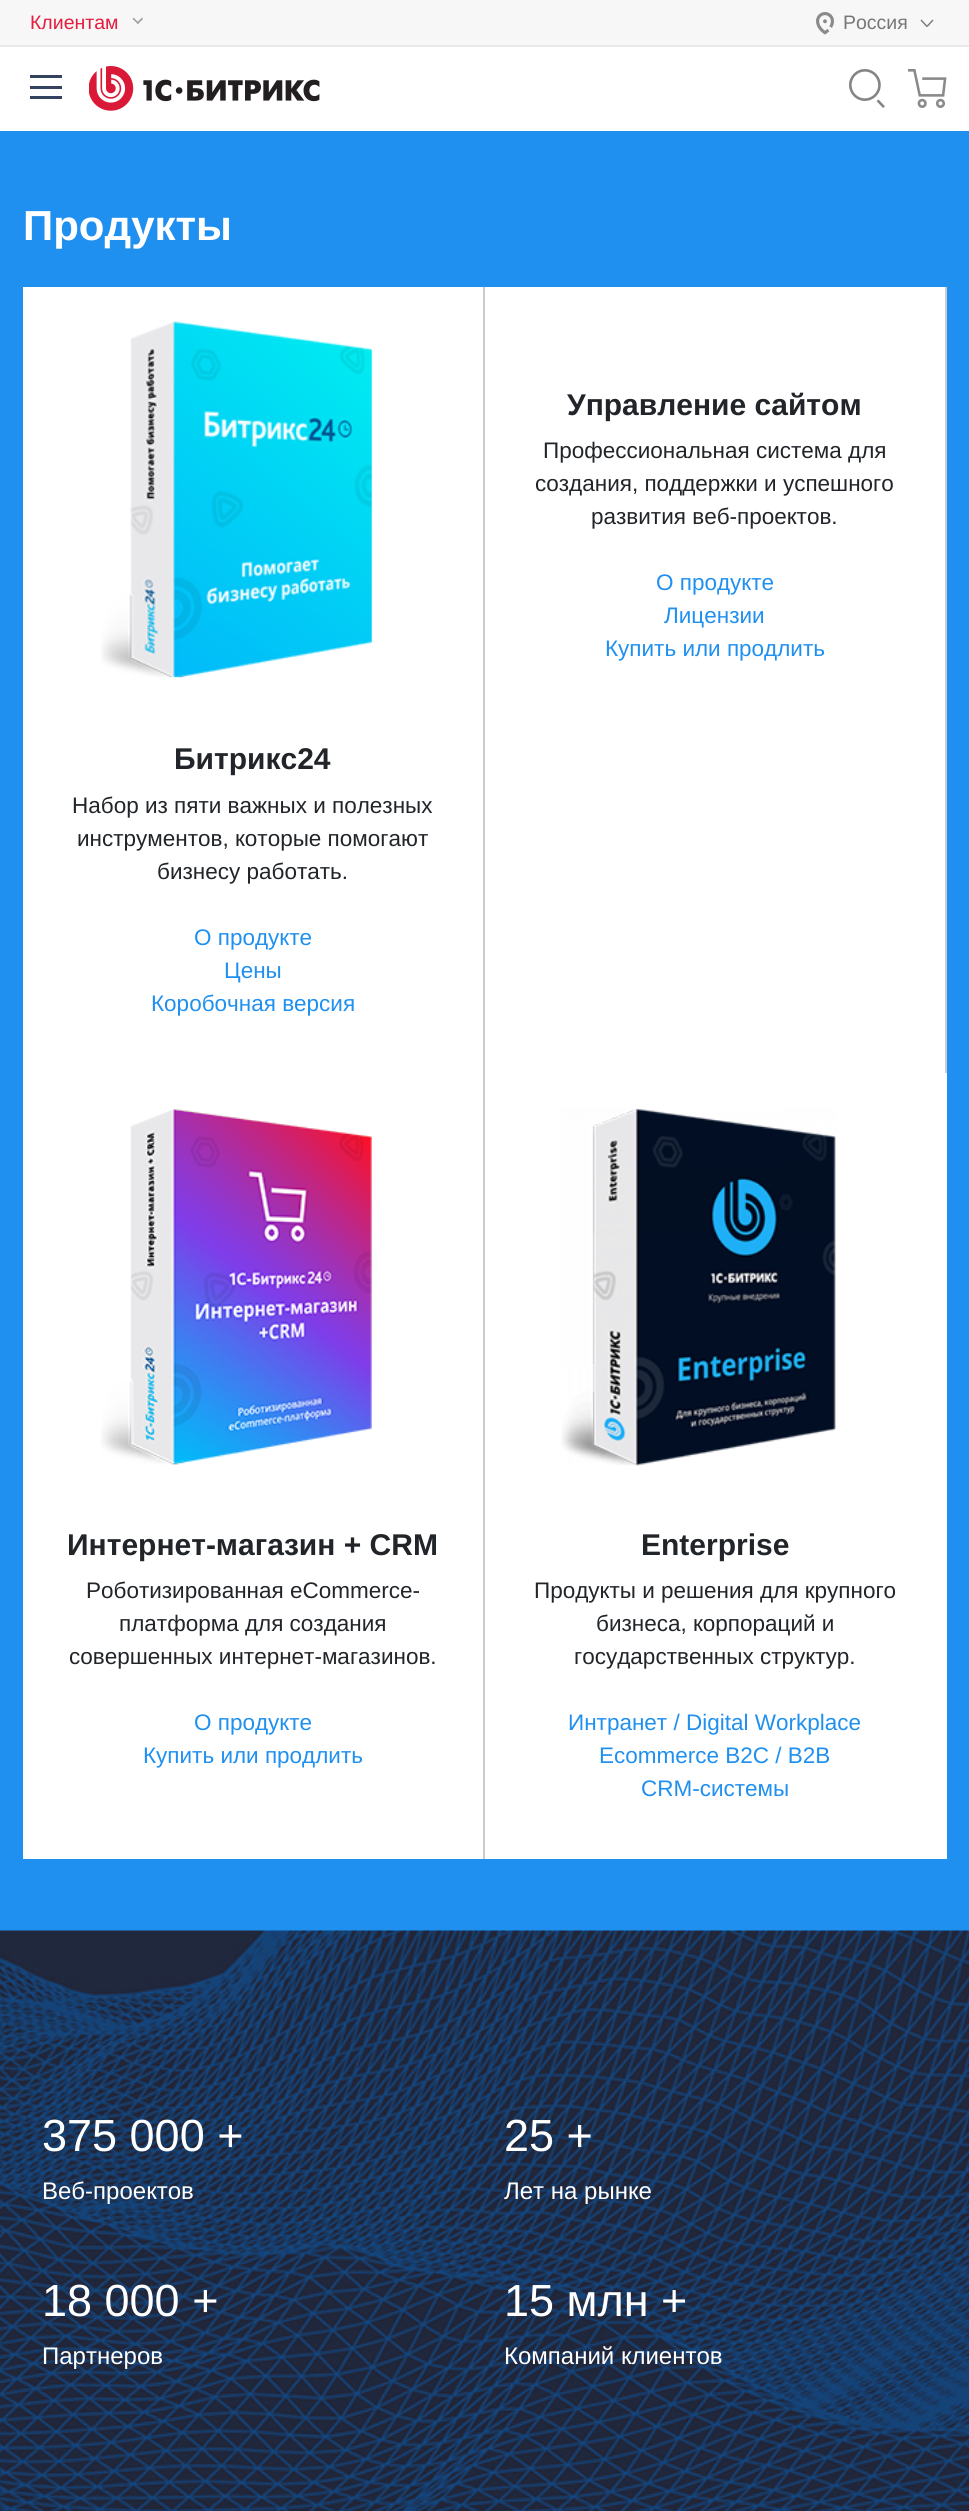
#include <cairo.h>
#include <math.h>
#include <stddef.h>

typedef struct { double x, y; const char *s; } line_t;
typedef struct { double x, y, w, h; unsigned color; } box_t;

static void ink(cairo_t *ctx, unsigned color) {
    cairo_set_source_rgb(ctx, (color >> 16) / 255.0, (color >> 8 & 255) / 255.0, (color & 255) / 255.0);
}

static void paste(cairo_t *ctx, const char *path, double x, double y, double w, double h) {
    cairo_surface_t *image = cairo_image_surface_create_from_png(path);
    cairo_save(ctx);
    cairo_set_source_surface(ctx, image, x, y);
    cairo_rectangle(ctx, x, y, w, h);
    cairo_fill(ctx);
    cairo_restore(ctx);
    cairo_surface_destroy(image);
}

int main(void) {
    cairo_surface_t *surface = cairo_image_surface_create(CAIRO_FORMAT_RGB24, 969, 2511);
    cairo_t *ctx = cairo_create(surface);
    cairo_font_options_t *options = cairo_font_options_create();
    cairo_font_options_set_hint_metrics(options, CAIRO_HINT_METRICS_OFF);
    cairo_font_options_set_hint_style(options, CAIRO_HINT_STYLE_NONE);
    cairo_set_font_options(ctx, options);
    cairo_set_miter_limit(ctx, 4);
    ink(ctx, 0xF7F7F7);
    cairo_paint(ctx);
    ink(ctx, 0xE9E9E9);
    cairo_rectangle(ctx, 0, 45, 969, 2);
    cairo_fill(ctx);
    cairo_select_font_face(ctx, "Liberation Sans", CAIRO_FONT_SLANT_NORMAL, CAIRO_FONT_WEIGHT_NORMAL);
    cairo_set_font_size(ctx, 19.5);
    ink(ctx, 0xE41C3D);
    cairo_move_to(ctx, 30, 29);
    cairo_show_text(ctx, "Клиентам");
    ink(ctx, 0xA1A1A1);
    cairo_new_path(ctx);
    cairo_move_to(ctx, 136.5, 23);
    cairo_line_to(ctx, 142, 17.5);
    cairo_line_to(ctx, 143, 19);
    cairo_line_to(ctx, 138, 24);
    cairo_close_path(ctx);
    cairo_fill(ctx);
    cairo_new_path(ctx);
    cairo_move_to(ctx, 132.5, 19);
    cairo_line_to(ctx, 133.5, 17.5);
    cairo_line_to(ctx, 139, 23);
    cairo_line_to(ctx, 138, 24);
    cairo_close_path(ctx);
    cairo_fill(ctx);
    paste(ctx, "media/1.png", 816, 12, 18, 23);
    ink(ctx, 0x777777);
    cairo_move_to(ctx, 843, 29);
    cairo_show_text(ctx, "Россия");
    cairo_new_path(ctx);
    cairo_move_to(ctx, 921.5, 19.5);
    cairo_line_to(ctx, 927.5, 26);
    cairo_line_to(ctx, 926.5, 27);
    cairo_line_to(ctx, 920.5, 20.5);
    cairo_close_path(ctx);
    cairo_fill(ctx);
    cairo_new_path(ctx);
    cairo_move_to(ctx, 926.5, 26);
    cairo_line_to(ctx, 932.5, 19.5);
    cairo_line_to(ctx, 933.5, 20.5);
    cairo_line_to(ctx, 927.5, 27);
    cairo_close_path(ctx);
    cairo_fill(ctx);
    {
        static const box_t items[] = {
            {0, 47, 969, 84, 0xFFFFFF},
            {30, 86, 32, 3, 0x32425F},
            {30, 75, 32, 3, 0x32425F},
            {30, 96, 32, 3, 0x32425F},
        };
        for (size_t i = 0; i < sizeof items / sizeof *items; i++) {
            ink(ctx, items[i].color);
            cairo_rectangle(ctx, items[i].x, items[i].y, items[i].w, items[i].h);
            cairo_fill(ctx);
        }
    }
    paste(ctx, "media/2.png", 89, 66, 231, 45);
    paste(ctx, "media/3.png", 849, 69, 36, 39);
    paste(ctx, "media/4.png", 908, 69, 39, 39);
    ink(ctx, 0x1F90EF);
    cairo_rectangle(ctx, 0, 131, 969, 1800);
    cairo_fill(ctx);
    cairo_select_font_face(ctx, "Liberation Sans", CAIRO_FONT_SLANT_NORMAL, CAIRO_FONT_WEIGHT_BOLD);
    cairo_set_font_size(ctx, 42);
    ink(ctx, 0xFFFFFF);
    cairo_move_to(ctx, 23, 240);
    cairo_show_text(ctx, "Продукты");
    cairo_rectangle(ctx, 23, 287, 924, 1572);
    cairo_fill(ctx);
    ink(ctx, 0xCCCCCC);
    cairo_rectangle(ctx, 945, 287, 2, 786);
    cairo_fill(ctx);
    cairo_set_font_size(ctx, 30);
    ink(ctx, 0x212529);
    cairo_move_to(ctx, 567, 415);
    cairo_show_text(ctx, "Управление сайтом");
    cairo_select_font_face(ctx, "Liberation Sans", CAIRO_FONT_SLANT_NORMAL, CAIRO_FONT_WEIGHT_NORMAL);
    cairo_set_font_size(ctx, 22.5);
    {
        static const line_t items[] = {
            {543, 458, "Профессиональная система для"},
            {535, 491, "создания, поддержки и успешного"},
            {591, 524, "развития веб-проектов."},
        };
        for (size_t i = 0; i < sizeof items / sizeof *items; i++) {
            cairo_move_to(ctx, items[i].x, items[i].y);
            cairo_show_text(ctx, items[i].s);
        }
    }
    ink(ctx, 0x1F90EF);
    {
        static const line_t items[] = {
            {656, 590, "О продукте"},
            {664, 623, "Лицензии"},
            {605, 656, "Купить или продлить"},
        };
        for (size_t i = 0; i < sizeof items / sizeof *items; i++) {
            cairo_move_to(ctx, items[i].x, items[i].y);
            cairo_show_text(ctx, items[i].s);
        }
    }
    ink(ctx, 0xCCCCCC);
    cairo_rectangle(ctx, 483, 287, 2, 1572);
    cairo_fill(ctx);
    paste(ctx, "media/5.png", 101, 321, 271, 357);
    cairo_select_font_face(ctx, "Liberation Sans", CAIRO_FONT_SLANT_NORMAL, CAIRO_FONT_WEIGHT_BOLD);
    cairo_set_font_size(ctx, 30);
    ink(ctx, 0x212529);
    cairo_move_to(ctx, 174, 769);
    cairo_show_text(ctx, "Битрикс24");
    cairo_select_font_face(ctx, "Liberation Sans", CAIRO_FONT_SLANT_NORMAL, CAIRO_FONT_WEIGHT_NORMAL);
    cairo_set_font_size(ctx, 22.5);
    {
        static const line_t items[] = {
            {72, 813, "Набор из пяти важных и полезных"},
            {77, 846, "инструментов, которые помогают"},
            {157, 879, "бизнесу работать."},
        };
        for (size_t i = 0; i < sizeof items / sizeof *items; i++) {
            cairo_move_to(ctx, items[i].x, items[i].y);
            cairo_show_text(ctx, items[i].s);
        }
    }
    ink(ctx, 0x1F90EF);
    {
        static const line_t items[] = {
            {194, 945, "О продукте"},
            {224, 978, "Цены"},
            {151, 1011, "Коробочная версия"},
        };
        for (size_t i = 0; i < sizeof items / sizeof *items; i++) {
            cairo_move_to(ctx, items[i].x, items[i].y);
            cairo_show_text(ctx, items[i].s);
        }
    }
    paste(ctx, "media/6.png", 101, 1109, 271, 356);
    cairo_select_font_face(ctx, "Liberation Sans", CAIRO_FONT_SLANT_NORMAL, CAIRO_FONT_WEIGHT_BOLD);
    cairo_set_font_size(ctx, 30);
    ink(ctx, 0x212529);
    cairo_move_to(ctx, 67, 1555);
    cairo_show_text(ctx, "Интернет-магазин + CRM");
    cairo_select_font_face(ctx, "Liberation Sans", CAIRO_FONT_SLANT_NORMAL, CAIRO_FONT_WEIGHT_NORMAL);
    cairo_set_font_size(ctx, 22.5);
    {
        static const line_t items[] = {
            {86, 1598, "Роботизированная eCommerce-"},
            {119, 1631, "платформа для создания"},
            {69, 1664, "совершенных интернет-магазинов."},
        };
        for (size_t i = 0; i < sizeof items / sizeof *items; i++) {
            cairo_move_to(ctx, items[i].x, items[i].y);
            cairo_show_text(ctx, items[i].s);
        }
    }
    ink(ctx, 0x1F90EF);
    cairo_move_to(ctx, 194, 1730);
    cairo_show_text(ctx, "О продукте");
    cairo_move_to(ctx, 143, 1763);
    cairo_show_text(ctx, "Купить или продлить");
    paste(ctx, "media/7.png", 561, 1108, 275, 358);
    cairo_select_font_face(ctx, "Liberation Sans", CAIRO_FONT_SLANT_NORMAL, CAIRO_FONT_WEIGHT_BOLD);
    cairo_set_font_size(ctx, 30);
    ink(ctx, 0x212529);
    cairo_move_to(ctx, 641, 1555);
    cairo_show_text(ctx, "Enterprise");
    cairo_select_font_face(ctx, "Liberation Sans", CAIRO_FONT_SLANT_NORMAL, CAIRO_FONT_WEIGHT_NORMAL);
    cairo_set_font_size(ctx, 22.5);
    {
        static const line_t items[] = {
            {534, 1598, "Продукты и решения для крупного"},
            {596, 1631, "бизнеса, корпораций и"},
            {574, 1664, "государственных структур."},
        };
        for (size_t i = 0; i < sizeof items / sizeof *items; i++) {
            cairo_move_to(ctx, items[i].x, items[i].y);
            cairo_show_text(ctx, items[i].s);
        }
    }
    ink(ctx, 0x1F90EF);
    {
        static const line_t items[] = {
            {568, 1730, "Интранет / Digital Workplace"},
            {599, 1763, "Ecommerce B2C / B2B"},
            {641, 1796, "CRM-системы"},
        };
        for (size_t i = 0; i < sizeof items / sizeof *items; i++) {
            cairo_move_to(ctx, items[i].x, items[i].y);
            cairo_show_text(ctx, items[i].s);
        }
    }
    paste(ctx, "media/8.png", 0, 1930, 969, 581);
    cairo_set_font_size(ctx, 45);
    ink(ctx, 0xFFFFFF);
    cairo_move_to(ctx, 42, 2151);
    cairo_show_text(ctx, "375 000 +");
    cairo_set_font_size(ctx, 24);
    cairo_move_to(ctx, 42, 2199);
    cairo_show_text(ctx, "Веб-проектов");
    cairo_set_font_size(ctx, 45);
    cairo_move_to(ctx, 504, 2151);
    cairo_show_text(ctx, "25 +");
    cairo_set_font_size(ctx, 24);
    cairo_move_to(ctx, 504, 2199);
    cairo_show_text(ctx, "Лет на рынке");
    cairo_set_font_size(ctx, 45);
    cairo_move_to(ctx, 42, 2316);
    cairo_show_text(ctx, "18 000 +");
    cairo_set_font_size(ctx, 24);
    cairo_move_to(ctx, 42, 2364);
    cairo_show_text(ctx, "Партнеров");
    cairo_set_font_size(ctx, 45);
    cairo_move_to(ctx, 504, 2316);
    cairo_show_text(ctx, "15 млн +");
    cairo_set_font_size(ctx, 24);
    cairo_move_to(ctx, 504, 2364);
    cairo_show_text(ctx, "Компаний клиентов");
    cairo_surface_write_to_png(surface, "image.png");
    cairo_font_options_destroy(options);
    cairo_destroy(ctx);
    cairo_surface_destroy(surface);
    return 0;
}
